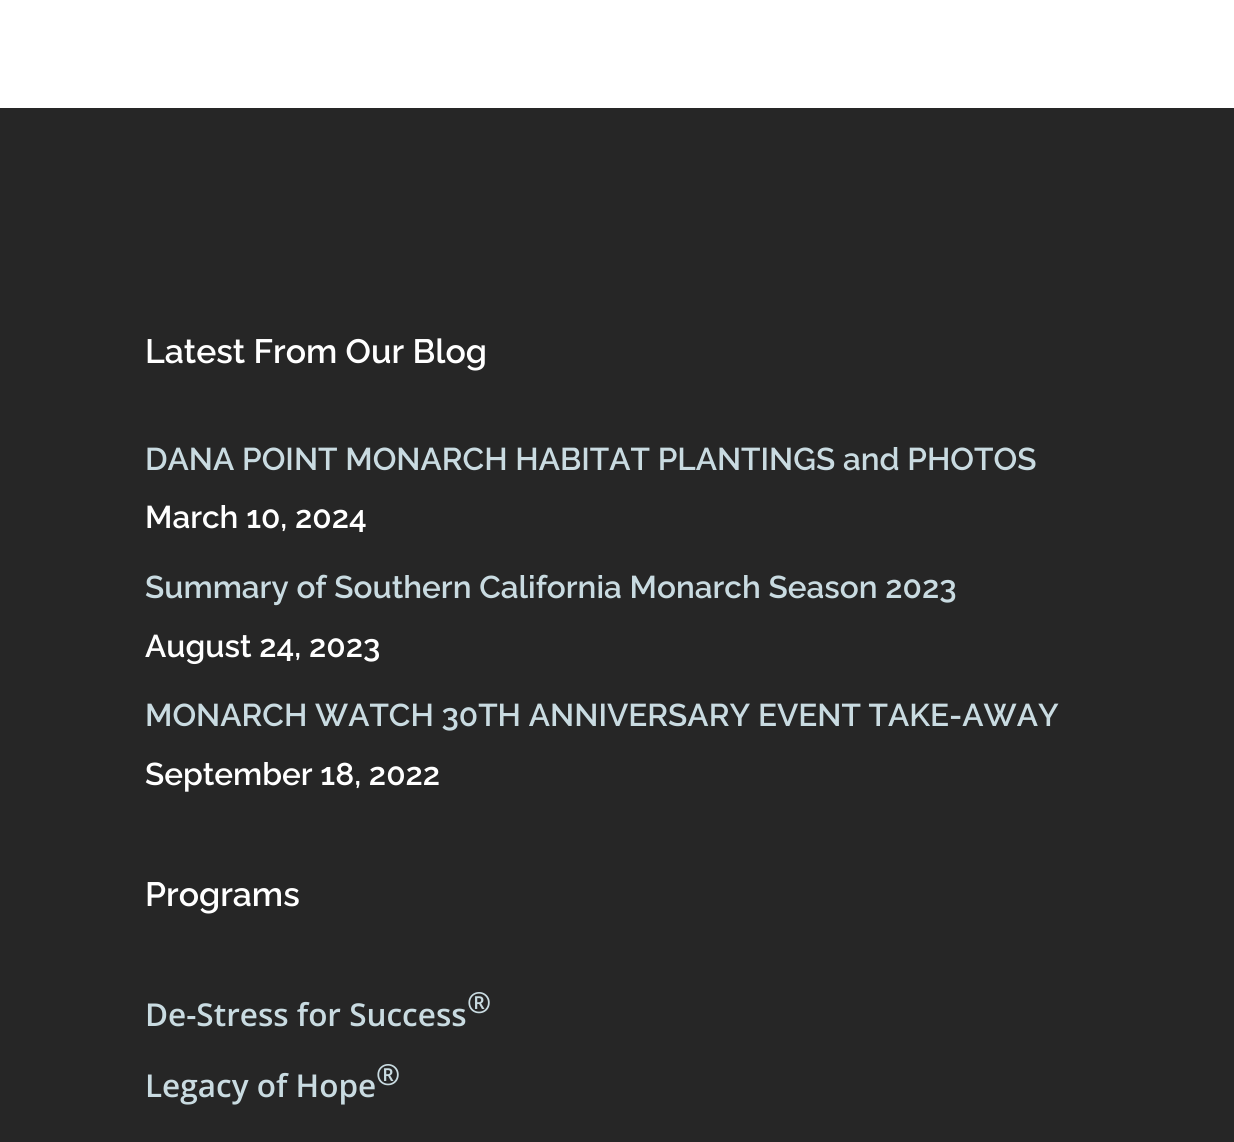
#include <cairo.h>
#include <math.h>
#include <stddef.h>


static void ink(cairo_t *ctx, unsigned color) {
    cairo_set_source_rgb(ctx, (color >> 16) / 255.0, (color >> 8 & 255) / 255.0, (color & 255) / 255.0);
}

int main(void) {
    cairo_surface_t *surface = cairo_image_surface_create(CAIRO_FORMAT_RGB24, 1234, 1142);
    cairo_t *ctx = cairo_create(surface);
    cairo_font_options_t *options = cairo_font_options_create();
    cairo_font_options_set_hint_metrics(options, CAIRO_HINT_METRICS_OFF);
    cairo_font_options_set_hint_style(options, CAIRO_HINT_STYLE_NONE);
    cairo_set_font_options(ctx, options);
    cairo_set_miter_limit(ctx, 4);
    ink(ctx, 0xFFFFFF);
    cairo_paint(ctx);
    ink(ctx, 0x262626);
    cairo_rectangle(ctx, 0, 108, 1234, 1034);
    cairo_fill(ctx);
    cairo_select_font_face(ctx, "Raleway SemiBold", CAIRO_FONT_SLANT_NORMAL, CAIRO_FONT_WEIGHT_NORMAL);
    cairo_set_font_size(ctx, 33.75);
    ink(ctx, 0xFFFFFF);
    cairo_move_to(ctx, 145, 363);
    cairo_show_text(ctx, "Latest From Our Blog");
    cairo_set_font_size(ctx, 31.5);
    ink(ctx, 0xC9DBE1);
    cairo_move_to(ctx, 145, 470);
    cairo_show_text(ctx, "DANA POINT MONARCH HABITAT PLANTINGS and PHOTOS");
    ink(ctx, 0xFFFFFF);
    cairo_move_to(ctx, 145, 528);
    cairo_show_text(ctx, "March 10, 2024");
    ink(ctx, 0xC9DBE1);
    cairo_move_to(ctx, 145, 598);
    cairo_show_text(ctx, "Summary of Southern California Monarch Season 2023");
    ink(ctx, 0xFFFFFF);
    cairo_move_to(ctx, 145, 657);
    cairo_show_text(ctx, "August 24, 2023");
    ink(ctx, 0xC9DBE1);
    cairo_move_to(ctx, 145, 726);
    cairo_show_text(ctx, "MONARCH WATCH 30TH ANNIVERSARY EVENT TAKE-AWAY");
    ink(ctx, 0xFFFFFF);
    cairo_move_to(ctx, 145, 785);
    cairo_show_text(ctx, "September 18, 2022");
    cairo_set_font_size(ctx, 33.75);
    cairo_move_to(ctx, 145, 906);
    cairo_show_text(ctx, "Programs");
    cairo_select_font_face(ctx, "Open Sans SemiBold", CAIRO_FONT_SLANT_NORMAL, CAIRO_FONT_WEIGHT_NORMAL);
    cairo_set_font_size(ctx, 31.5);
    ink(ctx, 0xC9DBE1);
    cairo_move_to(ctx, 145, 1026);
    cairo_show_text(ctx, "De-Stress for Success");
    cairo_set_font_size(ctx, 29);
    cairo_move_to(ctx, 467, 1013);
    cairo_show_text(ctx, "®");
    cairo_set_font_size(ctx, 31.5);
    cairo_move_to(ctx, 145, 1097);
    cairo_show_text(ctx, "Legacy of Hope");
    cairo_set_font_size(ctx, 29);
    cairo_move_to(ctx, 376, 1085);
    cairo_show_text(ctx, "®");
    cairo_surface_write_to_png(surface, "image.png");
    cairo_font_options_destroy(options);
    cairo_destroy(ctx);
    cairo_surface_destroy(surface);
    return 0;
}
